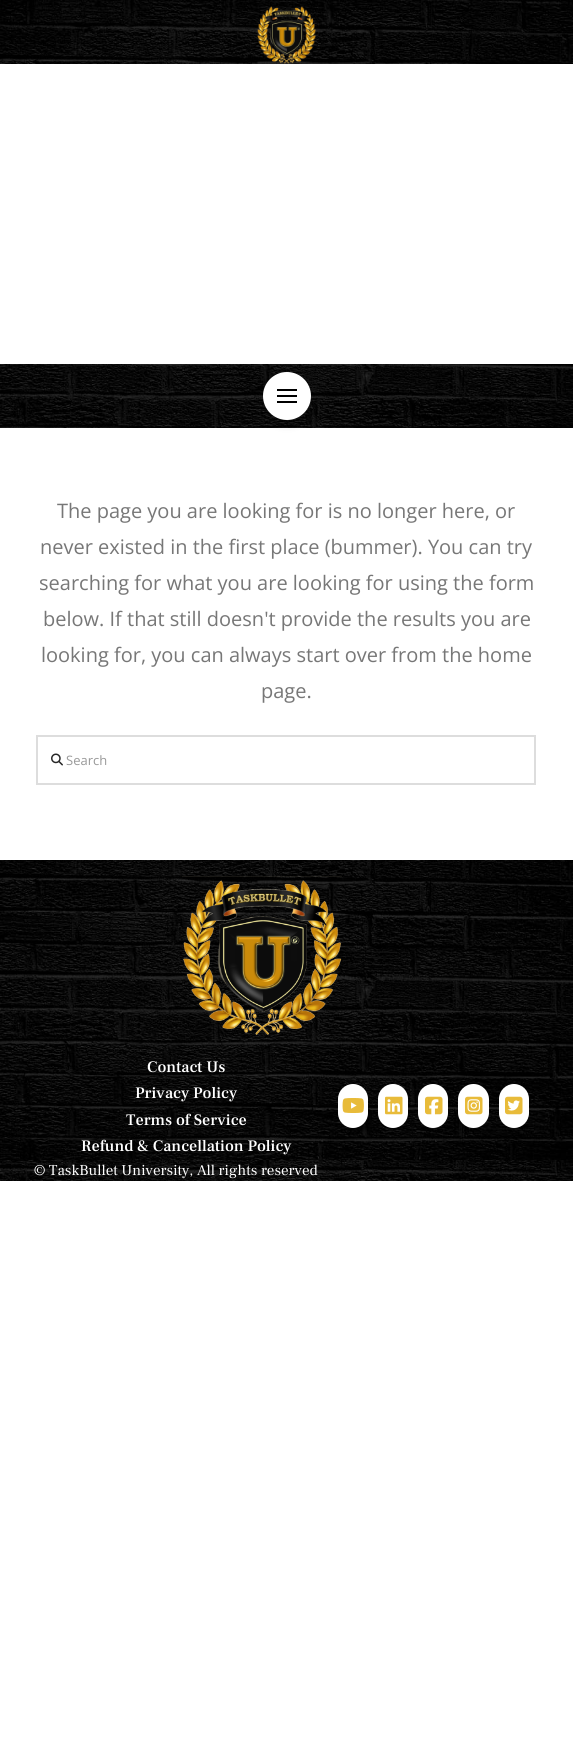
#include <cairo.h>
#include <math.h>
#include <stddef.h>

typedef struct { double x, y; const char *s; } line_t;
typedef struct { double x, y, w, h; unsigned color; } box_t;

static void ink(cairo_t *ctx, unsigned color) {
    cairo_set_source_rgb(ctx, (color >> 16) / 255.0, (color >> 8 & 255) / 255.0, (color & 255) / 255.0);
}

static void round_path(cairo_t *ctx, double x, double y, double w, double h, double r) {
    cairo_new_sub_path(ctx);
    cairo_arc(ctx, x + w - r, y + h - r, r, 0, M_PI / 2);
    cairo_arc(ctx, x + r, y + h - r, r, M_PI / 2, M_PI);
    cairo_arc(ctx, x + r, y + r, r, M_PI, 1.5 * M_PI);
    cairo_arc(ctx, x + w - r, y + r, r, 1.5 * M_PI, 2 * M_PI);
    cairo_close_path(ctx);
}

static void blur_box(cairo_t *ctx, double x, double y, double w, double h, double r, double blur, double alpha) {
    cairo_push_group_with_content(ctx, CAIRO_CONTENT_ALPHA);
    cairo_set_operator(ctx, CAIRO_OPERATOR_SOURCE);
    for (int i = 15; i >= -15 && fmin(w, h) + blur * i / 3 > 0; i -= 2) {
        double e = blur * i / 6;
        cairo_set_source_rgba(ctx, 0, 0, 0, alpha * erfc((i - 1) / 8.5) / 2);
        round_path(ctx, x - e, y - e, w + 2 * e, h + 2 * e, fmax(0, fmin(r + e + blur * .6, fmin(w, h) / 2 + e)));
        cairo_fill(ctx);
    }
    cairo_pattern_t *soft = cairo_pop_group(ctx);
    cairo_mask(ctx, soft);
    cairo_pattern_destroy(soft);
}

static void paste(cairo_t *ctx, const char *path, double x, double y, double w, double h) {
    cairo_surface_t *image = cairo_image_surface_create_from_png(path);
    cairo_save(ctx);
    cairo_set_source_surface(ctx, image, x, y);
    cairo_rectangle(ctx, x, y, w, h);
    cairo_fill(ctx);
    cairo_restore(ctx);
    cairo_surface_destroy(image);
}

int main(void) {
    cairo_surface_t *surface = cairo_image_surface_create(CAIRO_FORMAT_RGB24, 573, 1755);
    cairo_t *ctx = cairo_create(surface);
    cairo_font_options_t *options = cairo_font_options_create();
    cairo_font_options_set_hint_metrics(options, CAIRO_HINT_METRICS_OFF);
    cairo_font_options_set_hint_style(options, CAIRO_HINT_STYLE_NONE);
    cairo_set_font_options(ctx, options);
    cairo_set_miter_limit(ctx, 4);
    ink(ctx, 0xFFFFFF);
    cairo_paint(ctx);
    paste(ctx, "media/1.png", 0, 0, 573, 64);
    paste(ctx, "media/2.png", 257, 6, 59, 58);
    paste(ctx, "media/3.png", 0, 364, 573, 64);
    ink(ctx, 0x000000);
    blur_box(ctx, 263, 374, 48, 48, 24, 5, 0.25);
    ink(ctx, 0xFFFFFF);
    cairo_arc(ctx, 287, 396, 24, 0, 2 * M_PI);
    cairo_fill(ctx);
    {
        static const box_t items[] = {
            {277, 389, 20, 2, 0x000000},
            {277, 395, 20, 2, 0x000000},
            {277, 401, 20, 2, 0x000000},
        };
        for (size_t i = 0; i < sizeof items / sizeof *items; i++) {
            ink(ctx, items[i].color);
            cairo_rectangle(ctx, items[i].x, items[i].y, items[i].w, items[i].h);
            cairo_fill(ctx);
        }
    }
    cairo_select_font_face(ctx, "Open Sans", CAIRO_FONT_SLANT_NORMAL, CAIRO_FONT_WEIGHT_NORMAL);
    cairo_set_font_size(ctx, 20);
    ink(ctx, 0x777777);
    {
        static const line_t items[] = {
            {57, 518, "The page you are looking for is no longer here, or"},
            {40, 554, "never existed in the first place (bummer). You can try"},
            {39, 590, "searching for what you are looking for using the form"},
            {43, 626, "below. If that still doesn't provide the results you are"},
            {41, 662, "looking for, you can always start over from the home"},
            {261, 698, "page."},
        };
        for (size_t i = 0; i < sizeof items / sizeof *items; i++) {
            cairo_move_to(ctx, items[i].x, items[i].y);
            cairo_show_text(ctx, items[i].s);
        }
    }
    cairo_rectangle(ctx, 37, 736, 498, 48);
    ink(ctx, 0xDDDDDD);
    cairo_stroke(ctx);
    paste(ctx, "media/4.png", 51, 753, 12, 13);
    cairo_set_font_size(ctx, 13);
    ink(ctx, 0x999999);
    cairo_move_to(ctx, 66, 765);
    cairo_show_text(ctx, "Search");
    paste(ctx, "media/5.png", 0, 860, 573, 300);
    paste(ctx, "media/6.png", 182, 876, 160, 159);
    cairo_select_font_face(ctx, "Frank Ruhl Libre Medium", CAIRO_FONT_SLANT_NORMAL, CAIRO_FONT_WEIGHT_NORMAL);
    cairo_set_font_size(ctx, 16);
    ink(ctx, 0xFFFFFF);
    {
        static const line_t items[] = {
            {147, 1072, "Contact Us"},
            {135, 1098, "Privacy Policy"},
            {126, 1125, "Terms of Service"},
            {81, 1151, "Refund & Cancellation Policy"},
        };
        for (size_t i = 0; i < sizeof items / sizeof *items; i++) {
            cairo_move_to(ctx, items[i].x, items[i].y);
            cairo_show_text(ctx, items[i].s);
        }
    }
    round_path(ctx, 338, 1084, 30, 44, 15);
    cairo_fill(ctx);
    paste(ctx, "media/7.png", 342, 1098, 22, 15);
    round_path(ctx, 378, 1084, 30, 44, 15);
    cairo_fill(ctx);
    paste(ctx, "media/8.png", 385, 1096, 18, 19);
    round_path(ctx, 418, 1084, 30, 44, 15);
    cairo_fill(ctx);
    paste(ctx, "media/9.png", 425, 1096, 18, 19);
    round_path(ctx, 458, 1084, 31, 44, 15.5);
    cairo_fill(ctx);
    paste(ctx, "media/10.png", 465, 1096, 18, 19);
    round_path(ctx, 499, 1084, 30, 44, 15);
    cairo_fill(ctx);
    paste(ctx, "media/11.png", 505, 1096, 18, 19);
    paste(ctx, "media/12.png", 0, 1160, 573, 21);
    cairo_select_font_face(ctx, "Frank Ruhl Libre", CAIRO_FONT_SLANT_NORMAL, CAIRO_FONT_WEIGHT_NORMAL);
    cairo_set_font_size(ctx, 15);
    cairo_move_to(ctx, 34, 1175);
    cairo_show_text(ctx, "© TaskBullet University, All rights reserved");
    cairo_surface_write_to_png(surface, "image.png");
    cairo_font_options_destroy(options);
    cairo_destroy(ctx);
    cairo_surface_destroy(surface);
    return 0;
}
